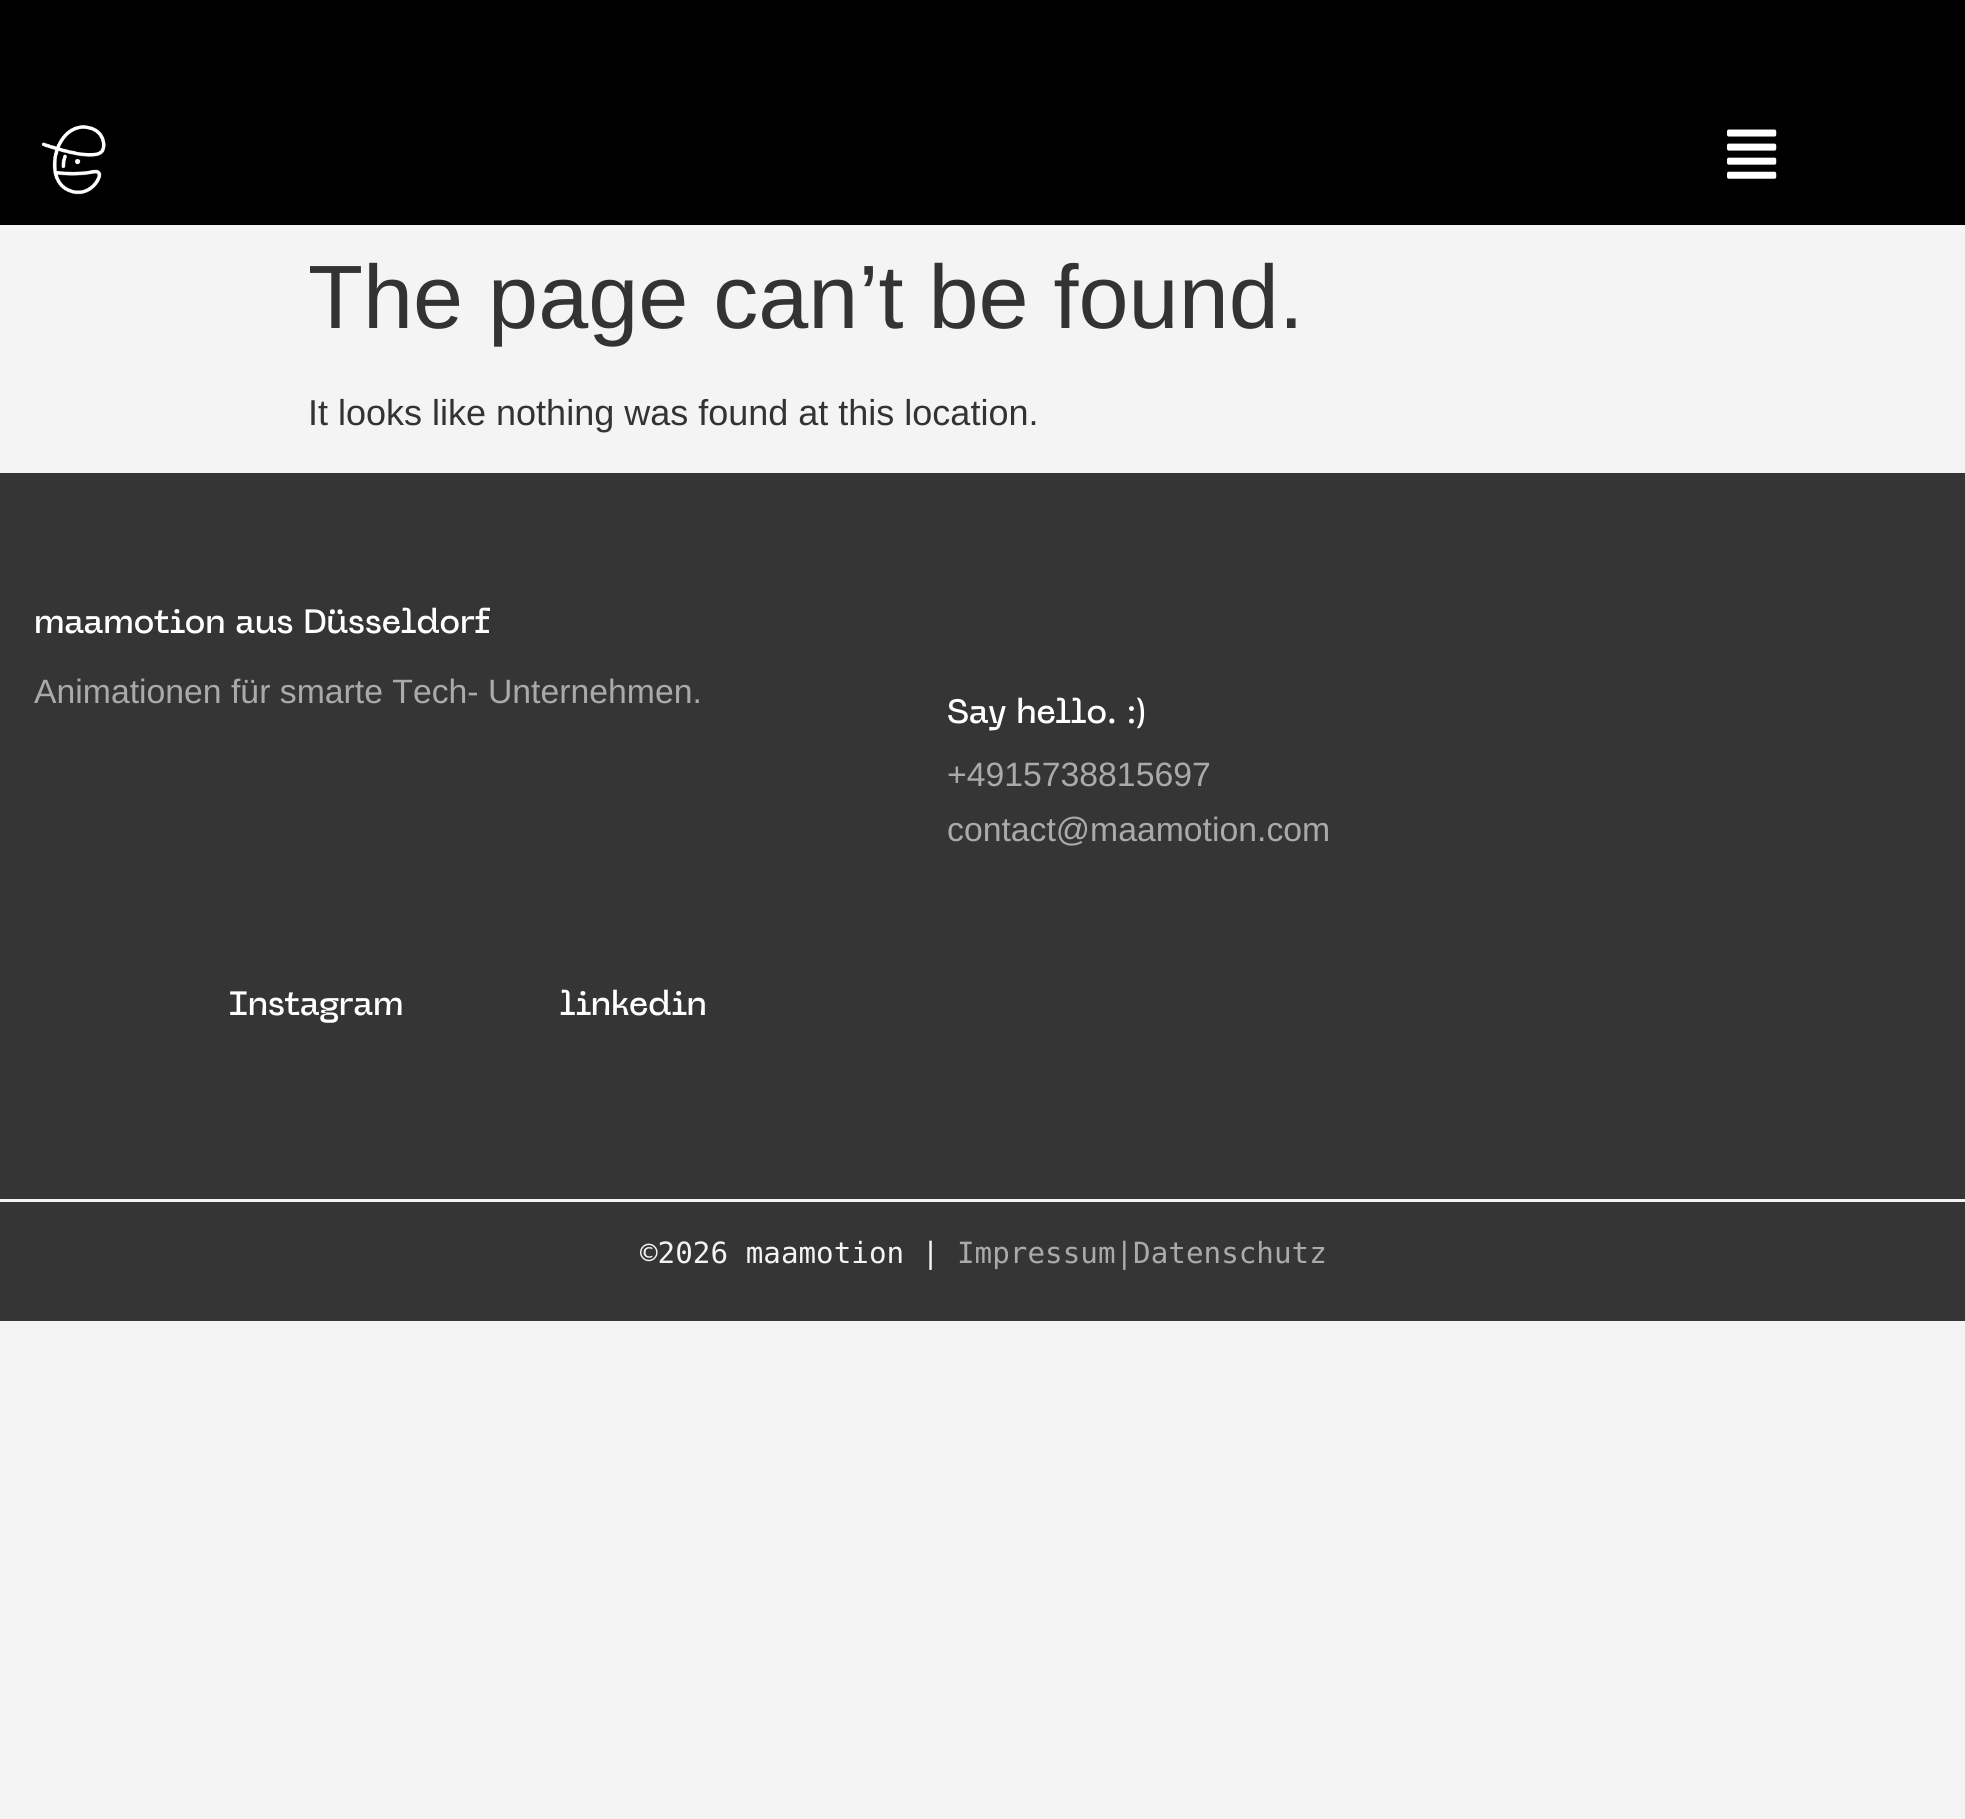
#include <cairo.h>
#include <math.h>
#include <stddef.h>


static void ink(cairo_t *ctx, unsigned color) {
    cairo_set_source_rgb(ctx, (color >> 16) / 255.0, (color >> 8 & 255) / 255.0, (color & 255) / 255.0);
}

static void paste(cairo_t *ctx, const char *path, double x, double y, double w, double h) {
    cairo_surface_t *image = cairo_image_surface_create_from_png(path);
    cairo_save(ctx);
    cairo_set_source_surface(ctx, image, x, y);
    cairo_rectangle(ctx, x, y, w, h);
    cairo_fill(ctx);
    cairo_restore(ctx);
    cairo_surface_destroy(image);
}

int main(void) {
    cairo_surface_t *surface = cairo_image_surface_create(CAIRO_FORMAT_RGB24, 1965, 1819);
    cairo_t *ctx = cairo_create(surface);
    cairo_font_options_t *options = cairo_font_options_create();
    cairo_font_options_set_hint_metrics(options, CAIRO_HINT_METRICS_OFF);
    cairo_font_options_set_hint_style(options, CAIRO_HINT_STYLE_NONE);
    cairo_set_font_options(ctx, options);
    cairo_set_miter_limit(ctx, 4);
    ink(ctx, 0xF4F4F4);
    cairo_paint(ctx);
    ink(ctx, 0x000000);
    cairo_rectangle(ctx, 0, 0, 1965, 225);
    cairo_fill(ctx);
    paste(ctx, "media/1.png", 41, 125, 65, 70);
    paste(ctx, "media/2.png", 1727, 129, 50, 50);
    cairo_select_font_face(ctx, "Liberation Sans", CAIRO_FONT_SLANT_NORMAL, CAIRO_FONT_WEIGHT_NORMAL);
    cairo_set_font_size(ctx, 90);
    ink(ctx, 0x333333);
    cairo_move_to(ctx, 308, 328);
    cairo_show_text(ctx, "The page can’t be found.");
    cairo_set_font_size(ctx, 36);
    cairo_move_to(ctx, 308, 425);
    cairo_show_text(ctx, "It looks like nothing was found at this location.");
    ink(ctx, 0x353535);
    cairo_rectangle(ctx, 0, 473, 1965, 726);
    cairo_fill(ctx);
    cairo_select_font_face(ctx, "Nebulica", CAIRO_FONT_SLANT_NORMAL, CAIRO_FONT_WEIGHT_NORMAL);
    cairo_set_font_size(ctx, 33.75);
    ink(ctx, 0xFFFFFF);
    cairo_move_to(ctx, 34, 633);
    cairo_show_text(ctx, "maamotion aus Düsseldorf");
    cairo_select_font_face(ctx, "Liberation Sans", CAIRO_FONT_SLANT_NORMAL, CAIRO_FONT_WEIGHT_NORMAL);
    ink(ctx, 0xAAAAAA);
    cairo_move_to(ctx, 34, 703);
    cairo_show_text(ctx, "Animationen für smarte Tech- Unternehmen.");
    cairo_select_font_face(ctx, "Nebulica", CAIRO_FONT_SLANT_NORMAL, CAIRO_FONT_WEIGHT_NORMAL);
    ink(ctx, 0xFFFFFF);
    cairo_move_to(ctx, 947, 723);
    cairo_show_text(ctx, "Say hello. :)");
    cairo_select_font_face(ctx, "Liberation Sans", CAIRO_FONT_SLANT_NORMAL, CAIRO_FONT_WEIGHT_NORMAL);
    ink(ctx, 0xAAAAAA);
    cairo_move_to(ctx, 947, 786);
    cairo_show_text(ctx, "+4915738815697");
    cairo_move_to(ctx, 947, 841);
    cairo_show_text(ctx, "contact@maamotion.com");
    cairo_select_font_face(ctx, "Nebulica", CAIRO_FONT_SLANT_NORMAL, CAIRO_FONT_WEIGHT_NORMAL);
    ink(ctx, 0xFFFFFF);
    cairo_move_to(ctx, 229, 1015);
    cairo_show_text(ctx, "Instagram");
    cairo_move_to(ctx, 560, 1015);
    cairo_show_text(ctx, "linkedin");
    ink(ctx, 0x353535);
    cairo_rectangle(ctx, 0, 1202, 1965, 119);
    cairo_fill(ctx);
    cairo_select_font_face(ctx, "DejaVu Sans Mono", CAIRO_FONT_SLANT_NORMAL, CAIRO_FONT_WEIGHT_NORMAL);
    cairo_set_font_size(ctx, 29.25);
    ink(ctx, 0xF4F4F4);
    cairo_move_to(ctx, 640, 1263);
    cairo_show_text(ctx, "©2026 maamotion |");
    ink(ctx, 0xAAAAAA);
    cairo_move_to(ctx, 957, 1263);
    cairo_show_text(ctx, "Impressum|Datenschutz");
    cairo_surface_write_to_png(surface, "image.png");
    cairo_font_options_destroy(options);
    cairo_destroy(ctx);
    cairo_surface_destroy(surface);
    return 0;
}
